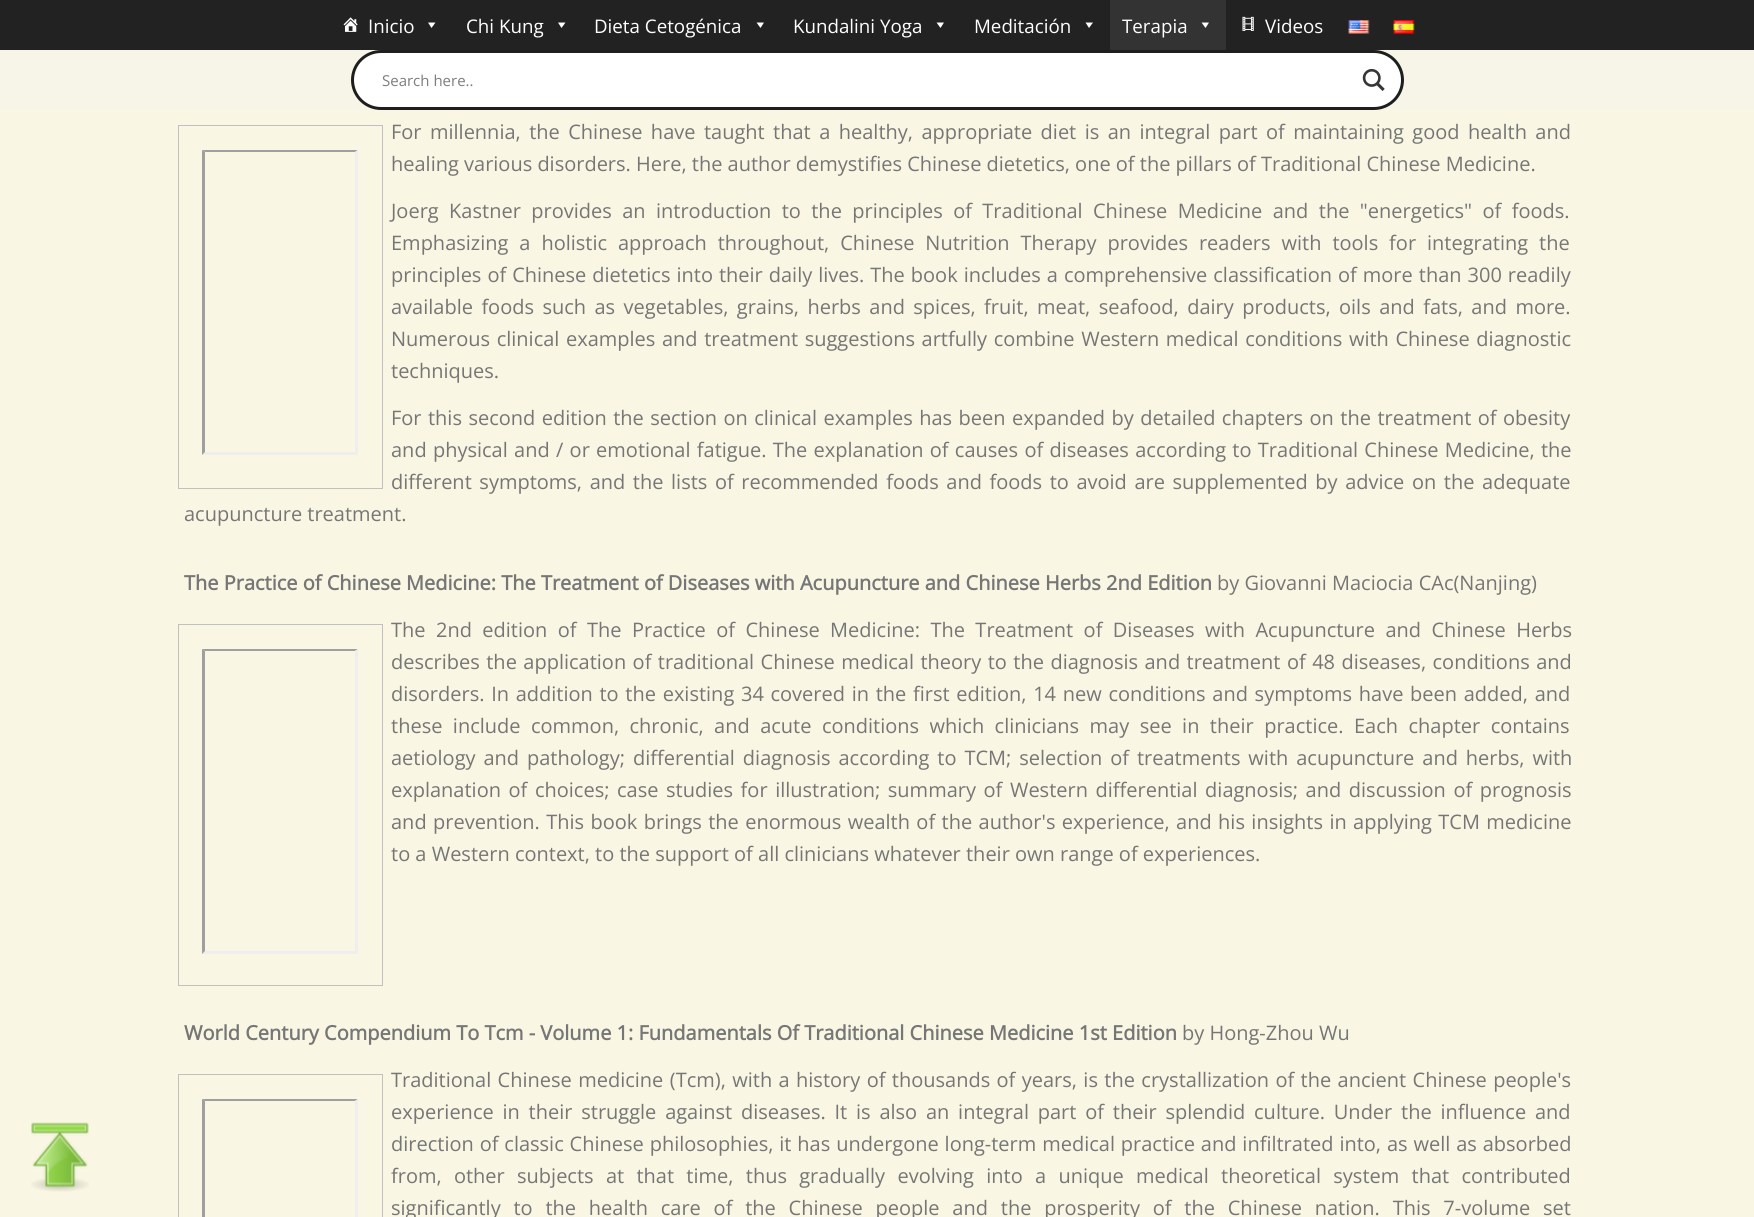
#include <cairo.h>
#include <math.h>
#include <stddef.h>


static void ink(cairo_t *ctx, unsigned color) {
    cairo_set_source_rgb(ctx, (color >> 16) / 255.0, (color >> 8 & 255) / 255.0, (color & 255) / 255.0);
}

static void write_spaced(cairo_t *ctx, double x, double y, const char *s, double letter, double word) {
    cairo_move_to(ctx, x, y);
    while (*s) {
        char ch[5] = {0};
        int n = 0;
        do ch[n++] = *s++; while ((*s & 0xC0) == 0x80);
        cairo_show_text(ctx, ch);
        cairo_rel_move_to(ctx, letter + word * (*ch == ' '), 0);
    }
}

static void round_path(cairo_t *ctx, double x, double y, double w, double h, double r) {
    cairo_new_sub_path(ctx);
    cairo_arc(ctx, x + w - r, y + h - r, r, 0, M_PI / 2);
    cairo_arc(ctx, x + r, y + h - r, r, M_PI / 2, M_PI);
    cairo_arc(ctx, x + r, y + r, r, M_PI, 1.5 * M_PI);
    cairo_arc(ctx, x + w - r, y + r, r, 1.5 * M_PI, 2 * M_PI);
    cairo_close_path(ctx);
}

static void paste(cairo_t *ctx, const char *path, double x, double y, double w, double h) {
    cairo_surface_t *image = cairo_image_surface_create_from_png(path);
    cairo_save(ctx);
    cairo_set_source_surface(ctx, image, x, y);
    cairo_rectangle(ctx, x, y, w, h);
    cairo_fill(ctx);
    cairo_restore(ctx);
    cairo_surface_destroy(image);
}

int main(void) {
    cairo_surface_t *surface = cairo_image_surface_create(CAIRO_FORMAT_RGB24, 1754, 1217);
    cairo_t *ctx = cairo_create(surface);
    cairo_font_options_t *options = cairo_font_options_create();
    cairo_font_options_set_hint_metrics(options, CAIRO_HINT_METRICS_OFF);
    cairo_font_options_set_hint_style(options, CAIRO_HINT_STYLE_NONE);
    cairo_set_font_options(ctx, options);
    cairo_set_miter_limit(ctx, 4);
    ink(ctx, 0xF9F6E3);
    cairo_paint(ctx);
    paste(ctx, "media/1.png", 31, 1122, 58, 70);
    ink(ctx, 0xF7F5E7);
    cairo_rectangle(ctx, 0, 50, 1754, 60);
    cairo_fill(ctx);
    ink(ctx, 0x222222);
    cairo_rectangle(ctx, 0, 0, 1754, 50);
    cairo_fill(ctx);
    paste(ctx, "media/2.png", 343, 17, 15, 15);
    cairo_select_font_face(ctx, "Open Sans", CAIRO_FONT_SLANT_NORMAL, CAIRO_FONT_WEIGHT_NORMAL);
    cairo_set_font_size(ctx, 18.75);
    ink(ctx, 0xFFFFFF);
    cairo_move_to(ctx, 368, 33);
    cairo_show_text(ctx, "Inicio");
    cairo_new_path(ctx);
    cairo_move_to(ctx, 435.5, 22.5);
    cairo_line_to(ctx, 431.5, 28);
    cairo_line_to(ctx, 428, 22.5);
    cairo_close_path(ctx);
    cairo_fill(ctx);
    cairo_move_to(ctx, 466, 33);
    cairo_show_text(ctx, "Chi Kung");
    cairo_new_path(ctx);
    cairo_move_to(ctx, 565.5, 22.5);
    cairo_line_to(ctx, 561.5, 28);
    cairo_line_to(ctx, 558, 22.5);
    cairo_close_path(ctx);
    cairo_fill(ctx);
    cairo_move_to(ctx, 594, 33);
    cairo_show_text(ctx, "Dieta Cetogénica");
    cairo_new_path(ctx);
    cairo_move_to(ctx, 764, 22.5);
    cairo_line_to(ctx, 760.5, 28);
    cairo_line_to(ctx, 756.5, 22.5);
    cairo_close_path(ctx);
    cairo_fill(ctx);
    cairo_move_to(ctx, 793, 33);
    cairo_show_text(ctx, "Kundalini Yoga");
    cairo_new_path(ctx);
    cairo_move_to(ctx, 944, 22.5);
    cairo_line_to(ctx, 940.5, 28);
    cairo_line_to(ctx, 936.5, 22.5);
    cairo_close_path(ctx);
    cairo_fill(ctx);
    cairo_move_to(ctx, 974, 33);
    cairo_show_text(ctx, "Meditación");
    cairo_new_path(ctx);
    cairo_move_to(ctx, 1093, 22.5);
    cairo_line_to(ctx, 1089, 28);
    cairo_line_to(ctx, 1085.5, 22.5);
    cairo_close_path(ctx);
    cairo_fill(ctx);
    ink(ctx, 0x333333);
    cairo_rectangle(ctx, 1110, 0, 116, 50);
    cairo_fill(ctx);
    ink(ctx, 0xFFFFFF);
    cairo_move_to(ctx, 1122, 33);
    cairo_show_text(ctx, "Terapia");
    cairo_new_path(ctx);
    cairo_move_to(ctx, 1209, 22.5);
    cairo_line_to(ctx, 1205.5, 28);
    cairo_line_to(ctx, 1201.5, 22.5);
    cairo_close_path(ctx);
    cairo_fill(ctx);
    paste(ctx, "media/3.png", 1242, 16, 12, 15);
    cairo_move_to(ctx, 1265, 33);
    cairo_show_text(ctx, "Videos");
    paste(ctx, "media/4.png", 1348, 20, 22, 14);
    paste(ctx, "media/5.png", 1393, 20, 22, 14);
    round_path(ctx, 352.5, 51.5, 1050, 57, 28.5);
    cairo_fill_preserve(ctx);
    ink(ctx, 0x1E1E1E);
    cairo_set_line_width(ctx, 3);
    cairo_stroke(ctx);
    cairo_set_font_size(ctx, 15);
    ink(ctx, 0x7D7D7D);
    cairo_move_to(ctx, 382, 86);
    cairo_show_text(ctx, "Search here..");
    paste(ctx, "media/6.png", 1362, 68, 23, 23);
    cairo_rectangle(ctx, 178.5, 125.5, 204, 363);
    ink(ctx, 0xC0C0C0);
    cairo_set_line_width(ctx, 1);
    cairo_stroke(ctx);
    ink(ctx, 0x9F9F9F);
    cairo_new_path(ctx);
    cairo_move_to(ctx, 202, 150);
    cairo_line_to(ctx, 358, 150);
    cairo_line_to(ctx, 355, 152);
    cairo_line_to(ctx, 205, 152);
    cairo_close_path(ctx);
    cairo_fill(ctx);
    ink(ctx, 0xEEEEEE);
    cairo_new_path(ctx);
    cairo_move_to(ctx, 358, 150);
    cairo_line_to(ctx, 358, 455);
    cairo_line_to(ctx, 355, 452);
    cairo_line_to(ctx, 355, 152);
    cairo_close_path(ctx);
    cairo_fill(ctx);
    cairo_new_path(ctx);
    cairo_move_to(ctx, 358, 455);
    cairo_line_to(ctx, 202, 455);
    cairo_line_to(ctx, 205, 452);
    cairo_line_to(ctx, 355, 452);
    cairo_close_path(ctx);
    cairo_fill(ctx);
    ink(ctx, 0x9F9F9F);
    cairo_new_path(ctx);
    cairo_move_to(ctx, 202, 455);
    cairo_line_to(ctx, 202, 150);
    cairo_line_to(ctx, 205, 152);
    cairo_line_to(ctx, 205, 452);
    cairo_close_path(ctx);
    cairo_fill(ctx);
    cairo_set_font_size(ctx, 20);
    ink(ctx, 0x767676);
    write_spaced(ctx, 391, 139, "For millennia, the Chinese have taught that a healthy, appropriate diet is an integral part of maintaining good health and", 0, 3.25);
    cairo_move_to(ctx, 391, 171);
    cairo_show_text(ctx, "healing various disorders. Here, the author demystifies Chinese dietetics, one of the pillars of Traditional Chinese Medicine.");
    write_spaced(ctx, 391, 218, "Joerg Kastner provides an introduction to the principles of Traditional Chinese Medicine and the \"energetics\" of foods.", 0, 5.25);
    write_spaced(ctx, 391, 250, "Emphasizing a holistic approach throughout, Chinese Nutrition Therapy provides readers with tools for integrating the", 0, 5.75);
    write_spaced(ctx, 391, 282, "principles of Chinese dietetics into their daily lives. The book includes a comprehensive classification of more than 300 readily", 0, 0.8);
    write_spaced(ctx, 391, 314, "available foods such as vegetables, grains, herbs and spices, fruit, meat, seafood, dairy products, oils and fats, and more.", 0, 3.25);
    write_spaced(ctx, 391, 346, "Numerous clinical examples and treatment suggestions artfully combine Western medical conditions with Chinese diagnostic", 0, 1.4);
    cairo_move_to(ctx, 391, 378);
    cairo_show_text(ctx, "techniques.");
    write_spaced(ctx, 391, 425, "For this second edition the section on clinical examples has been expanded by detailed chapters on the treatment of obesity", 0, 1.25);
    write_spaced(ctx, 391, 457, "and physical and / or emotional fatigue. The explanation of causes of diseases according to Traditional Chinese Medicine, the", 0, 1.1);
    write_spaced(ctx, 391, 489, "different symptoms, and the lists of recommended foods and foods to avoid are supplemented by advice on the adequate", 0, 2.4);
    cairo_move_to(ctx, 184, 521);
    cairo_show_text(ctx, "acupuncture treatment.");
    cairo_select_font_face(ctx, "Open Sans", CAIRO_FONT_SLANT_NORMAL, CAIRO_FONT_WEIGHT_BOLD);
    cairo_move_to(ctx, 184, 590);
    cairo_show_text(ctx, "The Practice of Chinese Medicine: The Treatment of Diseases with Acupuncture and Chinese Herbs 2nd Edition");
    cairo_select_font_face(ctx, "Open Sans", CAIRO_FONT_SLANT_NORMAL, CAIRO_FONT_WEIGHT_NORMAL);
    cairo_move_to(ctx, 1217, 590);
    cairo_show_text(ctx, "by Giovanni Maciocia CAc(Nanjing)");
    cairo_rectangle(ctx, 178.5, 624.5, 204, 361);
    ink(ctx, 0xC0C0C0);
    cairo_stroke(ctx);
    ink(ctx, 0x9F9F9F);
    cairo_new_path(ctx);
    cairo_move_to(ctx, 202, 649);
    cairo_line_to(ctx, 358, 649);
    cairo_line_to(ctx, 355, 651);
    cairo_line_to(ctx, 205, 651);
    cairo_close_path(ctx);
    cairo_fill(ctx);
    ink(ctx, 0xEEEEEE);
    cairo_new_path(ctx);
    cairo_move_to(ctx, 358, 649);
    cairo_line_to(ctx, 358, 954);
    cairo_line_to(ctx, 355, 951);
    cairo_line_to(ctx, 355, 651);
    cairo_close_path(ctx);
    cairo_fill(ctx);
    cairo_new_path(ctx);
    cairo_move_to(ctx, 358, 954);
    cairo_line_to(ctx, 202, 954);
    cairo_line_to(ctx, 205, 951);
    cairo_line_to(ctx, 355, 951);
    cairo_close_path(ctx);
    cairo_fill(ctx);
    ink(ctx, 0x9F9F9F);
    cairo_new_path(ctx);
    cairo_move_to(ctx, 202, 954);
    cairo_line_to(ctx, 202, 649);
    cairo_line_to(ctx, 205, 651);
    cairo_line_to(ctx, 205, 951);
    cairo_close_path(ctx);
    cairo_fill(ctx);
    ink(ctx, 0x767676);
    write_spaced(ctx, 391, 637, "The 2nd edition of The Practice of Chinese Medicine: The Treatment of Diseases with Acupuncture and Chinese Herbs", 0, 5.25);
    write_spaced(ctx, 391, 669, "describes the application of traditional Chinese medical theory to the diagnosis and treatment of 48 diseases, conditions and", 0, 1.25);
    write_spaced(ctx, 391, 701, "disorders. In addition to the existing 34 covered in the first edition, 14 new conditions and symptoms have been added, and", 0, 1.5);
    write_spaced(ctx, 391, 733, "these include common, chronic, and acute conditions which clinicians may see in their practice. Each chapter contains", 0, 5.25);
    write_spaced(ctx, 391, 765, "aetiology and pathology; differential diagnosis according to TCM; selection of treatments with acupuncture and herbs, with", 0, 2.75);
    write_spaced(ctx, 391, 797, "explanation of choices; case studies for illustration; summary of Western differential diagnosis; and discussion of prognosis", 0, 2.4);
    write_spaced(ctx, 391, 829, "and prevention. This book brings the enormous wealth of the author's experience, and his insights in applying TCM medicine", 0, 1.2);
    cairo_move_to(ctx, 391, 861);
    cairo_show_text(ctx, "to a Western context, to the support of all clinicians whatever their own range of experiences.");
    cairo_select_font_face(ctx, "Open Sans", CAIRO_FONT_SLANT_NORMAL, CAIRO_FONT_WEIGHT_BOLD);
    cairo_move_to(ctx, 184, 1040);
    cairo_show_text(ctx, "World Century Compendium To Tcm - Volume 1: Fundamentals Of Traditional Chinese Medicine 1st Edition");
    cairo_select_font_face(ctx, "Open Sans", CAIRO_FONT_SLANT_NORMAL, CAIRO_FONT_WEIGHT_NORMAL);
    cairo_move_to(ctx, 1182, 1040);
    cairo_show_text(ctx, "by Hong-Zhou Wu");
    cairo_rectangle(ctx, 178.5, 1074.5, 204, 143);
    ink(ctx, 0xC0C0C0);
    cairo_stroke(ctx);
    ink(ctx, 0x9F9F9F);
    cairo_new_path(ctx);
    cairo_move_to(ctx, 202, 1099);
    cairo_line_to(ctx, 358, 1099);
    cairo_line_to(ctx, 355, 1101);
    cairo_line_to(ctx, 205, 1101);
    cairo_close_path(ctx);
    cairo_fill(ctx);
    cairo_new_path(ctx);
    cairo_move_to(ctx, 202, 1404);
    cairo_line_to(ctx, 202, 1099);
    cairo_line_to(ctx, 205, 1101);
    cairo_line_to(ctx, 205, 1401);
    cairo_close_path(ctx);
    cairo_fill(ctx);
    ink(ctx, 0xEEEEEE);
    cairo_new_path(ctx);
    cairo_move_to(ctx, 358, 1099);
    cairo_line_to(ctx, 358, 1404);
    cairo_line_to(ctx, 355, 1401);
    cairo_line_to(ctx, 355, 1101);
    cairo_close_path(ctx);
    cairo_fill(ctx);
    ink(ctx, 0x767676);
    write_spaced(ctx, 391, 1087, "Traditional Chinese medicine (Tcm), with a history of thousands of years, is the crystallization of the ancient Chinese people's", 0, 1.2);
    write_spaced(ctx, 391, 1119, "experience in their struggle against diseases. It is also an integral part of their splendid culture. Under the influence and", 0, 3.6);
    write_spaced(ctx, 391, 1151, "direction of classic Chinese philosophies, it has undergone long-term medical practice and infiltrated into, as well as absorbed", 0, 0.7);
    write_spaced(ctx, 391, 1183, "from, other subjects at that time, thus gradually evolving into a unique medical theoretical system that contributed", 0, 7.1);
    write_spaced(ctx, 391, 1215, "significantly to the health care of the Chinese people and the prosperity of the Chinese nation. This 7-volume set", 0, 7.6);
    cairo_surface_write_to_png(surface, "image.png");
    cairo_font_options_destroy(options);
    cairo_destroy(ctx);
    cairo_surface_destroy(surface);
    return 0;
}
